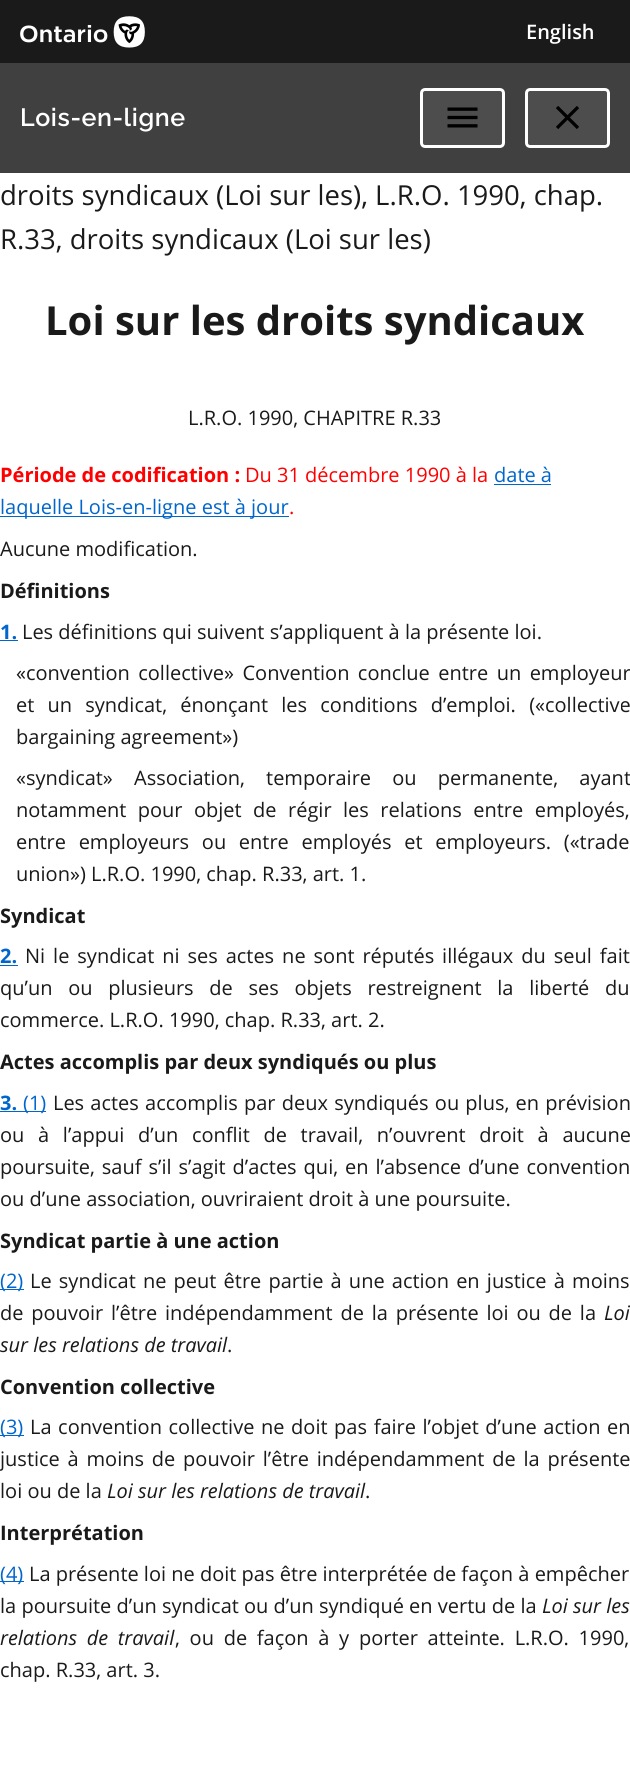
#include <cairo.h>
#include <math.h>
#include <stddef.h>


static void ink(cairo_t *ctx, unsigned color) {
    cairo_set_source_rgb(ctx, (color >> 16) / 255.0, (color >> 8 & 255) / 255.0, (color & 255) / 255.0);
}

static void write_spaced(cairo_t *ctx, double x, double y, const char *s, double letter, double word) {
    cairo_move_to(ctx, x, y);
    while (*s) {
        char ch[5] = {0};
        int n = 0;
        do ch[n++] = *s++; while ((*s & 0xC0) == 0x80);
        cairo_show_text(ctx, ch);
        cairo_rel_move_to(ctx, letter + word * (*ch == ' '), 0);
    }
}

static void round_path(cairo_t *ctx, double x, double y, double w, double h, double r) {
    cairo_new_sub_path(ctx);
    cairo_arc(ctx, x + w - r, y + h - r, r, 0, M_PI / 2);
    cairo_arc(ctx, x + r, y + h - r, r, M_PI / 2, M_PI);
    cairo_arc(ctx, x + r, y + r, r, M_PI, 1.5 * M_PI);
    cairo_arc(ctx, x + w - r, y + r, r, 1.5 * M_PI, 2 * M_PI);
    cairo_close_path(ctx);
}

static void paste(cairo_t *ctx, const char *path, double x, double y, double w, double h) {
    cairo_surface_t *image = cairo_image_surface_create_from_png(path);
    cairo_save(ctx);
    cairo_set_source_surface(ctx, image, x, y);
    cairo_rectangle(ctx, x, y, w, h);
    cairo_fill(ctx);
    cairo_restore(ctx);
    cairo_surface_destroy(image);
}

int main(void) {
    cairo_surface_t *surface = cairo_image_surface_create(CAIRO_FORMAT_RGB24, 630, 1780);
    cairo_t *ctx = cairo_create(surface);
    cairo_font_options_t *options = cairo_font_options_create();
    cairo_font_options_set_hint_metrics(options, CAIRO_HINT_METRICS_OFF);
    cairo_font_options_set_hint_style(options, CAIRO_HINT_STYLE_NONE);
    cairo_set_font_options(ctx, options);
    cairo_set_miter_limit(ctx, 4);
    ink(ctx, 0xFFFFFF);
    cairo_paint(ctx);
    ink(ctx, 0x1A1A1A);
    cairo_rectangle(ctx, 0, 0, 630, 63);
    cairo_fill(ctx);
    paste(ctx, "media/1.png", 20, 16, 125, 32);
    cairo_select_font_face(ctx, "Open Sans SemiBold", CAIRO_FONT_SLANT_NORMAL, CAIRO_FONT_WEIGHT_NORMAL);
    cairo_set_font_size(ctx, 20);
    ink(ctx, 0xFFFFFF);
    cairo_move_to(ctx, 526, 39);
    cairo_show_text(ctx, "English");
    ink(ctx, 0x404040);
    cairo_rectangle(ctx, 0, 63, 630, 110);
    cairo_fill(ctx);
    cairo_select_font_face(ctx, "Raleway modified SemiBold", CAIRO_FONT_SLANT_NORMAL, CAIRO_FONT_WEIGHT_NORMAL);
    cairo_set_font_size(ctx, 25);
    ink(ctx, 0xFFFFFF);
    write_spaced(ctx, 20, 126, "Lois-en-ligne", 0.6, 0);
    ink(ctx, 0x4D4D4D);
    round_path(ctx, 421.5, 89.5, 82, 57, 3.5);
    cairo_fill_preserve(ctx);
    ink(ctx, 0xFFFFFF);
    cairo_set_line_width(ctx, 3);
    cairo_stroke(ctx);
    paste(ctx, "media/2.png", 447, 107, 31, 21);
    ink(ctx, 0x4D4D4D);
    round_path(ctx, 526.5, 89.5, 82, 57, 3.5);
    cairo_fill_preserve(ctx);
    ink(ctx, 0xFFFFFF);
    cairo_stroke(ctx);
    paste(ctx, "media/3.png", 556, 106, 23, 23);
    cairo_select_font_face(ctx, "Open Sans", CAIRO_FONT_SLANT_NORMAL, CAIRO_FONT_WEIGHT_NORMAL);
    cairo_set_font_size(ctx, 27.5);
    ink(ctx, 0x1A1A1A);
    cairo_move_to(ctx, 0, 205);
    cairo_show_text(ctx, "droits syndicaux (Loi sur les), L.R.O. 1990, chap.");
    cairo_move_to(ctx, 0, 249);
    cairo_show_text(ctx, "R.33, droits syndicaux (Loi sur les)");
    cairo_select_font_face(ctx, "Open Sans", CAIRO_FONT_SLANT_NORMAL, CAIRO_FONT_WEIGHT_BOLD);
    cairo_set_font_size(ctx, 40);
    cairo_move_to(ctx, 45, 335);
    cairo_show_text(ctx, "Loi sur les droits syndicaux");
    cairo_select_font_face(ctx, "Open Sans", CAIRO_FONT_SLANT_NORMAL, CAIRO_FONT_WEIGHT_NORMAL);
    cairo_set_font_size(ctx, 20);
    cairo_move_to(ctx, 188, 425);
    cairo_show_text(ctx, "L.R.O. 1990, CHAPITRE R.33");
    cairo_select_font_face(ctx, "Open Sans", CAIRO_FONT_SLANT_NORMAL, CAIRO_FONT_WEIGHT_BOLD);
    ink(ctx, 0xFF0000);
    cairo_move_to(ctx, 0, 482);
    cairo_show_text(ctx, "Période de codification :");
    cairo_select_font_face(ctx, "Open Sans", CAIRO_FONT_SLANT_NORMAL, CAIRO_FONT_WEIGHT_NORMAL);
    cairo_move_to(ctx, 245, 482);
    cairo_show_text(ctx, "Du 31 décembre 1990 à la");
    ink(ctx, 0x0066CC);
    cairo_move_to(ctx, 494, 482);
    cairo_show_text(ctx, "date à");
    cairo_rectangle(ctx, 494, 484, 57, 1);
    cairo_fill(ctx);
    cairo_rectangle(ctx, 0, 516, 289, 1);
    cairo_fill(ctx);
    cairo_move_to(ctx, 0, 514);
    cairo_show_text(ctx, "laquelle Lois-en-ligne est à jour");
    ink(ctx, 0xFF0000);
    cairo_move_to(ctx, 289, 514);
    cairo_show_text(ctx, ".");
    ink(ctx, 0x1A1A1A);
    cairo_move_to(ctx, 0, 556);
    cairo_show_text(ctx, "Aucune modification.");
    cairo_select_font_face(ctx, "Open Sans", CAIRO_FONT_SLANT_NORMAL, CAIRO_FONT_WEIGHT_BOLD);
    cairo_move_to(ctx, 0, 598);
    cairo_show_text(ctx, "Définitions");
    ink(ctx, 0x0066CC);
    cairo_move_to(ctx, 0, 639);
    cairo_show_text(ctx, "1.");
    cairo_rectangle(ctx, 0, 640, 18, 1);
    cairo_fill(ctx);
    cairo_select_font_face(ctx, "Open Sans", CAIRO_FONT_SLANT_NORMAL, CAIRO_FONT_WEIGHT_NORMAL);
    ink(ctx, 0x1A1A1A);
    cairo_move_to(ctx, 22, 639);
    cairo_show_text(ctx, "Les définitions qui suivent s’appliquent à la présente loi.");
    write_spaced(ctx, 16, 680, "«convention collective» Convention conclue entre un employeur", 0, 3.25);
    write_spaced(ctx, 16, 712, "et un syndicat, énonçant les conditions d’emploi. («collective", 0, 8);
    cairo_move_to(ctx, 16, 744);
    cairo_show_text(ctx, "bargaining agreement»)");
    write_spaced(ctx, 16, 785, "«syndicat» Association, temporaire ou permanente, ayant", 0, 16);
    write_spaced(ctx, 16, 817, "notamment pour objet de régir les relations entre employés,", 0, 6.25);
    write_spaced(ctx, 16, 849, "entre employeurs ou entre employés et employeurs. («trade", 0, 7.5);
    cairo_move_to(ctx, 16, 881);
    cairo_show_text(ctx, "union») L.R.O. 1990, chap. R.33, art. 1.");
    cairo_select_font_face(ctx, "Open Sans", CAIRO_FONT_SLANT_NORMAL, CAIRO_FONT_WEIGHT_BOLD);
    cairo_move_to(ctx, 0, 923);
    cairo_show_text(ctx, "Syndicat");
    ink(ctx, 0x0066CC);
    cairo_move_to(ctx, 0, 963);
    cairo_show_text(ctx, "2.");
    cairo_rectangle(ctx, 0, 965, 18, 1);
    cairo_fill(ctx);
    cairo_select_font_face(ctx, "Open Sans", CAIRO_FONT_SLANT_NORMAL, CAIRO_FONT_WEIGHT_NORMAL);
    ink(ctx, 0x1A1A1A);
    write_spaced(ctx, 25, 963, "Ni le syndicat ni ses actes ne sont réputés illégaux du seul fait", 0, 2.75);
    write_spaced(ctx, 0, 995, "qu’un ou plusieurs de ses objets restreignent la liberté du", 0, 10.5);
    cairo_move_to(ctx, 0, 1027);
    cairo_show_text(ctx, "commerce. L.R.O. 1990, chap. R.33, art. 2.");
    cairo_select_font_face(ctx, "Open Sans", CAIRO_FONT_SLANT_NORMAL, CAIRO_FONT_WEIGHT_BOLD);
    cairo_move_to(ctx, 0, 1069);
    cairo_show_text(ctx, "Actes accomplis par deux syndiqués ou plus");
    ink(ctx, 0x0066CC);
    cairo_move_to(ctx, 0, 1110);
    cairo_show_text(ctx, "3.");
    cairo_rectangle(ctx, 0, 1111, 46, 1);
    cairo_fill(ctx);
    cairo_select_font_face(ctx, "Open Sans", CAIRO_FONT_SLANT_NORMAL, CAIRO_FONT_WEIGHT_NORMAL);
    cairo_move_to(ctx, 23, 1110);
    cairo_show_text(ctx, "(1)");
    ink(ctx, 0x1A1A1A);
    write_spaced(ctx, 53, 1110, "Les actes accomplis par deux syndiqués ou plus, en prévision", 0, 1);
    write_spaced(ctx, 0, 1142, "ou à l’appui d’un conflit de travail, n’ouvrent droit à aucune", 0, 8.5);
    write_spaced(ctx, 0, 1174, "poursuite, sauf s’il s’agit d’actes qui, en l’absence d’une convention", 0, 1.75);
    cairo_move_to(ctx, 0, 1206);
    cairo_show_text(ctx, "ou d’une association, ouvriraient droit à une poursuite.");
    cairo_select_font_face(ctx, "Open Sans", CAIRO_FONT_SLANT_NORMAL, CAIRO_FONT_WEIGHT_BOLD);
    cairo_move_to(ctx, 0, 1248);
    cairo_show_text(ctx, "Syndicat partie à une action");
    ink(ctx, 0x0066CC);
    cairo_rectangle(ctx, 0, 1289, 24, 1);
    cairo_fill(ctx);
    cairo_select_font_face(ctx, "Open Sans", CAIRO_FONT_SLANT_NORMAL, CAIRO_FONT_WEIGHT_NORMAL);
    cairo_move_to(ctx, 0, 1288);
    cairo_show_text(ctx, "(2)");
    ink(ctx, 0x1A1A1A);
    write_spaced(ctx, 30, 1288, "Le syndicat ne peut être partie à une action en justice à moins", 0, 2);
    write_spaced(ctx, 0, 1320, "de pouvoir l’être indépendamment de la présente loi ou de la", 0, 2.6);
    cairo_select_font_face(ctx, "Open Sans", CAIRO_FONT_SLANT_ITALIC, CAIRO_FONT_WEIGHT_NORMAL);
    cairo_move_to(ctx, 604, 1320);
    cairo_show_text(ctx, "Loi");
    cairo_move_to(ctx, 0, 1352);
    cairo_show_text(ctx, "sur les relations de travail");
    cairo_select_font_face(ctx, "Open Sans", CAIRO_FONT_SLANT_NORMAL, CAIRO_FONT_WEIGHT_NORMAL);
    cairo_move_to(ctx, 227, 1352);
    cairo_show_text(ctx, ".");
    cairo_select_font_face(ctx, "Open Sans", CAIRO_FONT_SLANT_NORMAL, CAIRO_FONT_WEIGHT_BOLD);
    cairo_move_to(ctx, 0, 1394);
    cairo_show_text(ctx, "Convention collective");
    ink(ctx, 0x0066CC);
    cairo_rectangle(ctx, 0, 1435, 24, 1);
    cairo_fill(ctx);
    cairo_select_font_face(ctx, "Open Sans", CAIRO_FONT_SLANT_NORMAL, CAIRO_FONT_WEIGHT_NORMAL);
    cairo_move_to(ctx, 0, 1434);
    cairo_show_text(ctx, "(3)");
    ink(ctx, 0x1A1A1A);
    write_spaced(ctx, 30, 1434, "La convention collective ne doit pas faire l’objet d’une action en", 0, 1.4);
    write_spaced(ctx, 0, 1466, "justice à moins de pouvoir l’être indépendamment de la présente", 0, 2.6);
    cairo_move_to(ctx, 0, 1498);
    cairo_show_text(ctx, "loi ou de la");
    cairo_select_font_face(ctx, "Open Sans", CAIRO_FONT_SLANT_ITALIC, CAIRO_FONT_WEIGHT_NORMAL);
    cairo_move_to(ctx, 107, 1498);
    cairo_show_text(ctx, "Loi sur les relations de travail");
    cairo_select_font_face(ctx, "Open Sans", CAIRO_FONT_SLANT_NORMAL, CAIRO_FONT_WEIGHT_NORMAL);
    cairo_move_to(ctx, 365, 1498);
    cairo_show_text(ctx, ".");
    cairo_select_font_face(ctx, "Open Sans", CAIRO_FONT_SLANT_NORMAL, CAIRO_FONT_WEIGHT_BOLD);
    cairo_move_to(ctx, 0, 1540);
    cairo_show_text(ctx, "Interprétation");
    ink(ctx, 0x0066CC);
    cairo_rectangle(ctx, 0, 1581, 24, 1);
    cairo_fill(ctx);
    cairo_select_font_face(ctx, "Open Sans", CAIRO_FONT_SLANT_NORMAL, CAIRO_FONT_WEIGHT_NORMAL);
    cairo_move_to(ctx, 0, 1581);
    cairo_show_text(ctx, "(4)");
    ink(ctx, 0x1A1A1A);
    cairo_move_to(ctx, 29, 1581);
    cairo_show_text(ctx, "La présente loi ne doit pas être interprétée de façon à empêcher");
    cairo_move_to(ctx, 0, 1613);
    cairo_show_text(ctx, "la poursuite d’un syndicat ou d’un syndiqué en vertu de la");
    cairo_select_font_face(ctx, "Open Sans", CAIRO_FONT_SLANT_ITALIC, CAIRO_FONT_WEIGHT_NORMAL);
    cairo_move_to(ctx, 542, 1613);
    cairo_show_text(ctx, "Loi sur les");
    write_spaced(ctx, 0, 1645, "relations de travail", 0, 4.5);
    cairo_select_font_face(ctx, "Open Sans", CAIRO_FONT_SLANT_NORMAL, CAIRO_FONT_WEIGHT_NORMAL);
    write_spaced(ctx, 175, 1645, ", ou de façon à y porter atteinte. L.R.O. 1990,", 0, 4.5);
    cairo_move_to(ctx, 0, 1677);
    cairo_show_text(ctx, "chap. R.33, art. 3.");
    cairo_surface_write_to_png(surface, "image.png");
    cairo_font_options_destroy(options);
    cairo_destroy(ctx);
    cairo_surface_destroy(surface);
    return 0;
}
